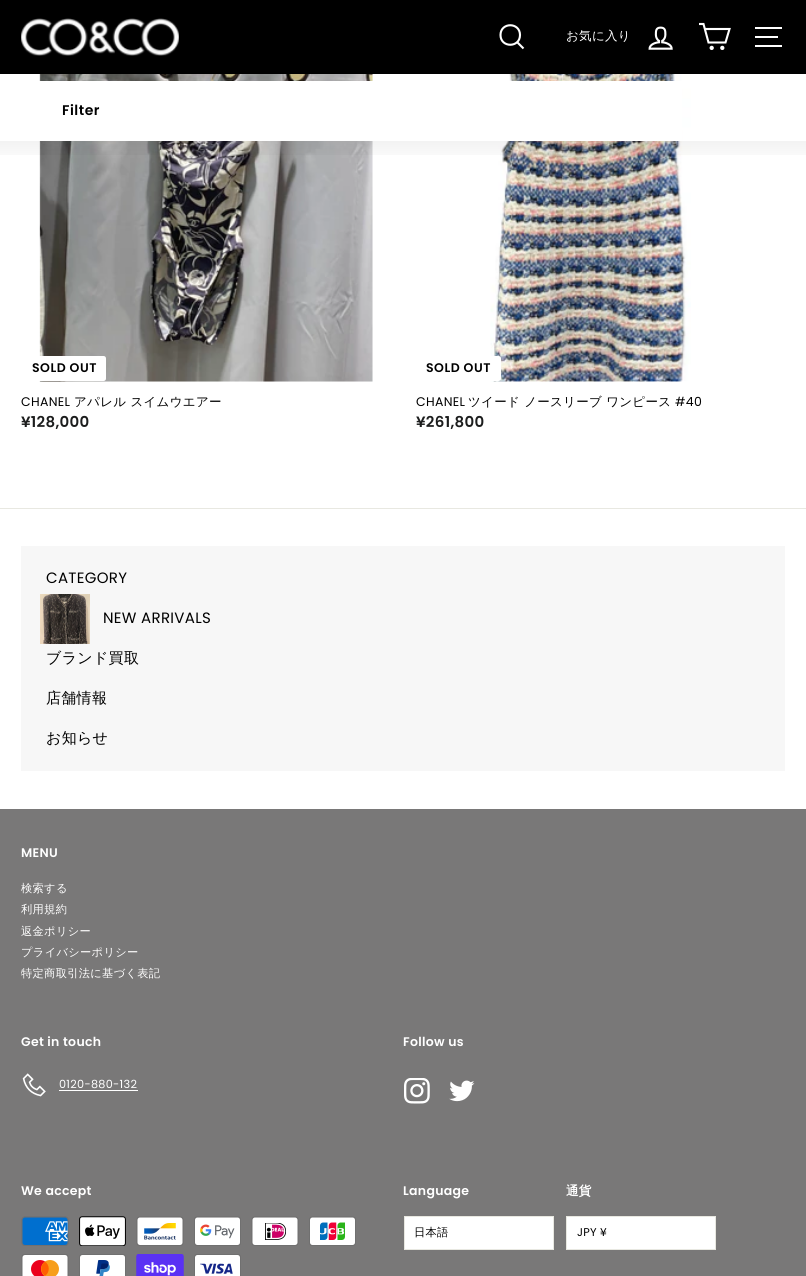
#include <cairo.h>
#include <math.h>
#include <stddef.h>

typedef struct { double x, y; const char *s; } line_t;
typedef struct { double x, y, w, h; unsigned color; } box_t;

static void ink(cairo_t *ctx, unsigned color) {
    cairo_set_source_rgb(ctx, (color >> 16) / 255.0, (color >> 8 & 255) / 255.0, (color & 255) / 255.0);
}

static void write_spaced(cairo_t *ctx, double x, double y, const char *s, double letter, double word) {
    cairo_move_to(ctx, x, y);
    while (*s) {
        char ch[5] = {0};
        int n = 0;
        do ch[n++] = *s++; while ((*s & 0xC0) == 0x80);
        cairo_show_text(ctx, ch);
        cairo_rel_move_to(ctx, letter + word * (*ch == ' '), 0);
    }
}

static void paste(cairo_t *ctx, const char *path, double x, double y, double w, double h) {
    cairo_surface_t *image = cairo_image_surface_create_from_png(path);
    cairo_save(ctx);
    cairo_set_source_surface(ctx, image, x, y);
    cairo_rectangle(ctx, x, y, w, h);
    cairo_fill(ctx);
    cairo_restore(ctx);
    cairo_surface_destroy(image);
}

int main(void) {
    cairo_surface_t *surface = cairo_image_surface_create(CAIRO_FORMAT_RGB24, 806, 1276);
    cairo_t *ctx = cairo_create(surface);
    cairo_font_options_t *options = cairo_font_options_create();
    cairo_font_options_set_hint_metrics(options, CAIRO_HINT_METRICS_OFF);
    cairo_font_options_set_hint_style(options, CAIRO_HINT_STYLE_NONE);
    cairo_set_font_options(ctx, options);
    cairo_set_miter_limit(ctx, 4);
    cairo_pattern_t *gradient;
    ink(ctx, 0xFFFFFF);
    cairo_paint(ctx);
    ink(ctx, 0xF7F7F7);
    cairo_rectangle(ctx, 21, 546, 764, 225);
    cairo_fill(ctx);
    ink(ctx, 0x000000);
    cairo_rectangle(ctx, 0, 0, 806, 74);
    cairo_fill(ctx);
    paste(ctx, "media/1.png", 21, 18, 158, 38);
    cairo_new_path(ctx);
    cairo_move_to(ctx, 520, 35);
    cairo_curve_to(ctx, 520, 48, 500.5, 48, 500.5, 35);
    cairo_curve_to(ctx, 500.5, 22, 520, 22, 520, 35);
    cairo_close_path(ctx);
    cairo_move_to(ctx, 523.5, 48.5);
    cairo_line_to(ctx, 517, 42);
    ink(ctx, 0xFFFFFF);
    cairo_set_line_width(ctx, 2.1);
    cairo_stroke(ctx);
    cairo_select_font_face(ctx, "WenQuanYi Zen Hei Medium", CAIRO_FONT_SLANT_NORMAL, CAIRO_FONT_WEIGHT_NORMAL);
    cairo_set_font_size(ctx, 12.5);
    write_spaced(ctx, 566, 40, "お気に入り", 0.3, 0);
    paste(ctx, "media/2.png", 648, 26, 25, 24);
    cairo_new_path(ctx);
    cairo_move_to(ctx, 705, 29);
    cairo_line_to(ctx, 729.5, 29);
    cairo_line_to(ctx, 725.5, 42.5);
    cairo_line_to(ctx, 708.5, 42.5);
    cairo_line_to(ctx, 703.5, 24);
    cairo_line_to(ctx, 699, 24);
    cairo_stroke(ctx);
    cairo_arc(ctx, 711.7, 47.9, 1.1, 0, 2 * M_PI);
    cairo_stroke(ctx);
    cairo_arc(ctx, 722.3, 47.9, 1.1, 0, 2 * M_PI);
    cairo_stroke(ctx);
    {
        static const box_t items[] = {
            {755, 27, 27, 2, 0xFFFFFF},
            {755, 36, 23, 2, 0xFFFFFF},
            {755, 45, 27, 2, 0xFFFFFF},
        };
        for (size_t i = 0; i < sizeof items / sizeof *items; i++) {
            ink(ctx, items[i].color);
            cairo_rectangle(ctx, items[i].x, items[i].y, items[i].w, items[i].h);
            cairo_fill(ctx);
        }
    }
    paste(ctx, "media/3.png", 39, 74, 334, 308);
    paste(ctx, "media/4.png", 490, 74, 201, 308);
    cairo_rectangle(ctx, 39, 81, 643, 60);
    cairo_fill(ctx);
    cairo_select_font_face(ctx, "Poppins SemiBold", CAIRO_FONT_SLANT_NORMAL, CAIRO_FONT_WEIGHT_NORMAL);
    cairo_set_font_size(ctx, 14);
    ink(ctx, 0x000000);
    write_spaced(ctx, 62, 115, "Filter", 0.5, 0);
    gradient = cairo_pattern_create_linear(403, 141, 403, 166);
    cairo_pattern_add_color_stop_rgba(gradient, 0, 0, 0, 0, 0.05);
    cairo_pattern_add_color_stop_rgba(gradient, 1, 0, 0, 0, 0);
    cairo_set_source(ctx, gradient);
    cairo_pattern_destroy(gradient);
    cairo_rectangle(ctx, 0, 141, 806, 14);
    cairo_fill(ctx);
    ink(ctx, 0xFFFFFF);
    cairo_new_path(ctx);
    cairo_move_to(ctx, 23, 356);
    cairo_line_to(ctx, 103.5, 356);
    cairo_curve_to(ctx, 105, 356, 106, 357, 106, 358.5);
    cairo_line_to(ctx, 106, 378.5);
    cairo_curve_to(ctx, 106, 380, 105, 381, 103.5, 381);
    cairo_line_to(ctx, 23, 381);
    cairo_close_path(ctx);
    cairo_fill(ctx);
    cairo_set_font_size(ctx, 12.5);
    ink(ctx, 0x000000);
    write_spaced(ctx, 32, 372, "SOLD OUT", 0.5, 0);
    cairo_select_font_face(ctx, "Poppins", CAIRO_FONT_SLANT_NORMAL, CAIRO_FONT_WEIGHT_NORMAL);
    write_spaced(ctx, 21, 406, "CHANEL", 0.3, 0);
    cairo_select_font_face(ctx, "WenQuanYi Zen Hei Medium", CAIRO_FONT_SLANT_NORMAL, CAIRO_FONT_WEIGHT_NORMAL);
    write_spaced(ctx, 74, 406, "アパレル スイムウエアー", 0.3, 0);
    cairo_select_font_face(ctx, "Poppins SemiBold", CAIRO_FONT_SLANT_NORMAL, CAIRO_FONT_WEIGHT_NORMAL);
    cairo_set_font_size(ctx, 15);
    ink(ctx, 0x1C1D1D);
    write_spaced(ctx, 21, 427, "¥128,000", 0.3, 0);
    ink(ctx, 0xFFFFFF);
    cairo_new_path(ctx);
    cairo_move_to(ctx, 418, 356);
    cairo_line_to(ctx, 498.5, 356);
    cairo_curve_to(ctx, 500, 356, 501, 357, 501, 358.5);
    cairo_line_to(ctx, 501, 378.5);
    cairo_curve_to(ctx, 501, 380, 500, 381, 498.5, 381);
    cairo_line_to(ctx, 418, 381);
    cairo_close_path(ctx);
    cairo_fill(ctx);
    cairo_set_font_size(ctx, 12.5);
    ink(ctx, 0x000000);
    write_spaced(ctx, 426, 372, "SOLD OUT", 0.5, 0);
    cairo_select_font_face(ctx, "Poppins", CAIRO_FONT_SLANT_NORMAL, CAIRO_FONT_WEIGHT_NORMAL);
    write_spaced(ctx, 416, 406, "CHANEL", 0.3, 0);
    cairo_select_font_face(ctx, "WenQuanYi Zen Hei Medium", CAIRO_FONT_SLANT_NORMAL, CAIRO_FONT_WEIGHT_NORMAL);
    write_spaced(ctx, 468, 406, "ツイード ノースリーブ ワンピース", 0.3, 0);
    cairo_select_font_face(ctx, "Poppins", CAIRO_FONT_SLANT_NORMAL, CAIRO_FONT_WEIGHT_NORMAL);
    write_spaced(ctx, 675, 406, "#40", 0.3, 0);
    cairo_select_font_face(ctx, "Poppins SemiBold", CAIRO_FONT_SLANT_NORMAL, CAIRO_FONT_WEIGHT_NORMAL);
    cairo_set_font_size(ctx, 15);
    ink(ctx, 0x1C1D1D);
    write_spaced(ctx, 416, 427, "¥261,800", 0.3, 0);
    ink(ctx, 0xE8E8E1);
    cairo_rectangle(ctx, 0, 508, 806, 1);
    cairo_fill(ctx);
    cairo_select_font_face(ctx, "Poppins", CAIRO_FONT_SLANT_NORMAL, CAIRO_FONT_WEIGHT_NORMAL);
    ink(ctx, 0x000000);
    write_spaced(ctx, 46, 583, "CATEGORY", 0.3, 0);
    paste(ctx, "media/5.png", 40, 594, 50, 50);
    write_spaced(ctx, 103, 623, "NEW ARRIVALS", 0.3, 0);
    cairo_select_font_face(ctx, "WenQuanYi Zen Hei Medium", CAIRO_FONT_SLANT_NORMAL, CAIRO_FONT_WEIGHT_NORMAL);
    {
        static const line_t items[] = {
            {46, 663, "ブランド買取"},
            {46, 703, "店舗情報"},
            {46, 743, "お知らせ"},
        };
        for (size_t i = 0; i < sizeof items / sizeof *items; i++) {
            write_spaced(ctx, items[i].x, items[i].y, items[i].s, 0.3, 0);
        }
    }
    ink(ctx, 0x797878);
    cairo_rectangle(ctx, 0, 809, 806, 467);
    cairo_fill(ctx);
    cairo_select_font_face(ctx, "Poppins SemiBold", CAIRO_FONT_SLANT_NORMAL, CAIRO_FONT_WEIGHT_NORMAL);
    cairo_set_font_size(ctx, 12.5);
    ink(ctx, 0xFFFFFF);
    write_spaced(ctx, 21, 857, "MENU", 0.3, 0);
    cairo_select_font_face(ctx, "WenQuanYi Zen Hei Medium", CAIRO_FONT_SLANT_NORMAL, CAIRO_FONT_WEIGHT_NORMAL);
    cairo_set_font_size(ctx, 11.25);
    {
        static const line_t items[] = {
            {21, 892, "検索する"},
            {21, 913, "利用規約"},
            {21, 935, "返金ポリシー"},
            {21, 956, "プライバシーポリシー"},
            {21, 977, "特定商取引法に基づく表記"},
        };
        for (size_t i = 0; i < sizeof items / sizeof *items; i++) {
            write_spaced(ctx, items[i].x, items[i].y, items[i].s, 0.3, 0);
        }
    }
    cairo_select_font_face(ctx, "Poppins SemiBold", CAIRO_FONT_SLANT_NORMAL, CAIRO_FONT_WEIGHT_NORMAL);
    cairo_set_font_size(ctx, 12.5);
    write_spaced(ctx, 21, 1046, "Get in touch", 0.3, 0);
    paste(ctx, "media/6.png", 22, 1073, 24, 24);
    cairo_select_font_face(ctx, "Poppins", CAIRO_FONT_SLANT_NORMAL, CAIRO_FONT_WEIGHT_NORMAL);
    cairo_set_font_size(ctx, 11.25);
    write_spaced(ctx, 59, 1088, "0120-880-132", 0.3, 0);
    cairo_rectangle(ctx, 59, 1090, 79, 1);
    cairo_fill(ctx);
    cairo_select_font_face(ctx, "Poppins SemiBold", CAIRO_FONT_SLANT_NORMAL, CAIRO_FONT_WEIGHT_NORMAL);
    cairo_set_font_size(ctx, 12.5);
    write_spaced(ctx, 403, 1046, "Follow us", 0.3, 0);
    paste(ctx, "media/7.png", 404, 1078, 26, 26);
    paste(ctx, "media/8.png", 449, 1080, 26, 22);
    write_spaced(ctx, 21, 1195, "We accept", 0.3, 0);
    paste(ctx, "media/9.png", 21, 1216, 48, 30);
    paste(ctx, "media/10.png", 79, 1216, 47, 30);
    paste(ctx, "media/11.png", 136, 1216, 48, 30);
    paste(ctx, "media/12.png", 194, 1216, 47, 30);
    paste(ctx, "media/13.png", 251, 1216, 48, 30);
    paste(ctx, "media/14.png", 309, 1216, 47, 30);
    paste(ctx, "media/15.png", 21, 1254, 48, 22);
    paste(ctx, "media/16.png", 79, 1254, 47, 22);
    paste(ctx, "media/17.png", 136, 1254, 48, 22);
    paste(ctx, "media/18.png", 194, 1254, 47, 22);
    write_spaced(ctx, 403, 1195, "Language", 0.3, 0);
    cairo_rectangle(ctx, 404.5, 1216.5, 149, 33);
    cairo_fill_preserve(ctx);
    ink(ctx, 0xE8E8E1);
    cairo_set_line_width(ctx, 1);
    cairo_stroke(ctx);
    cairo_select_font_face(ctx, "WenQuanYi Zen Hei Medium", CAIRO_FONT_SLANT_NORMAL, CAIRO_FONT_WEIGHT_NORMAL);
    cairo_set_font_size(ctx, 11.25);
    ink(ctx, 0x000000);
    write_spaced(ctx, 414, 1236, "日本語", 0.25, 0);
    cairo_select_font_face(ctx, "WenQuanYi Zen Hei", CAIRO_FONT_SLANT_NORMAL, CAIRO_FONT_WEIGHT_BOLD);
    cairo_set_font_size(ctx, 12.5);
    ink(ctx, 0xFFFFFF);
    write_spaced(ctx, 566, 1195, "通貨", 0.3, 0);
    cairo_rectangle(ctx, 566.5, 1216.5, 149, 33);
    cairo_fill_preserve(ctx);
    ink(ctx, 0xE8E8E1);
    cairo_stroke(ctx);
    cairo_select_font_face(ctx, "Poppins", CAIRO_FONT_SLANT_NORMAL, CAIRO_FONT_WEIGHT_NORMAL);
    cairo_set_font_size(ctx, 11.25);
    ink(ctx, 0x000000);
    write_spaced(ctx, 577, 1236, "JPY ¥", 0.25, 0);
    cairo_surface_write_to_png(surface, "image.png");
    cairo_font_options_destroy(options);
    cairo_destroy(ctx);
    cairo_surface_destroy(surface);
    return 0;
}
